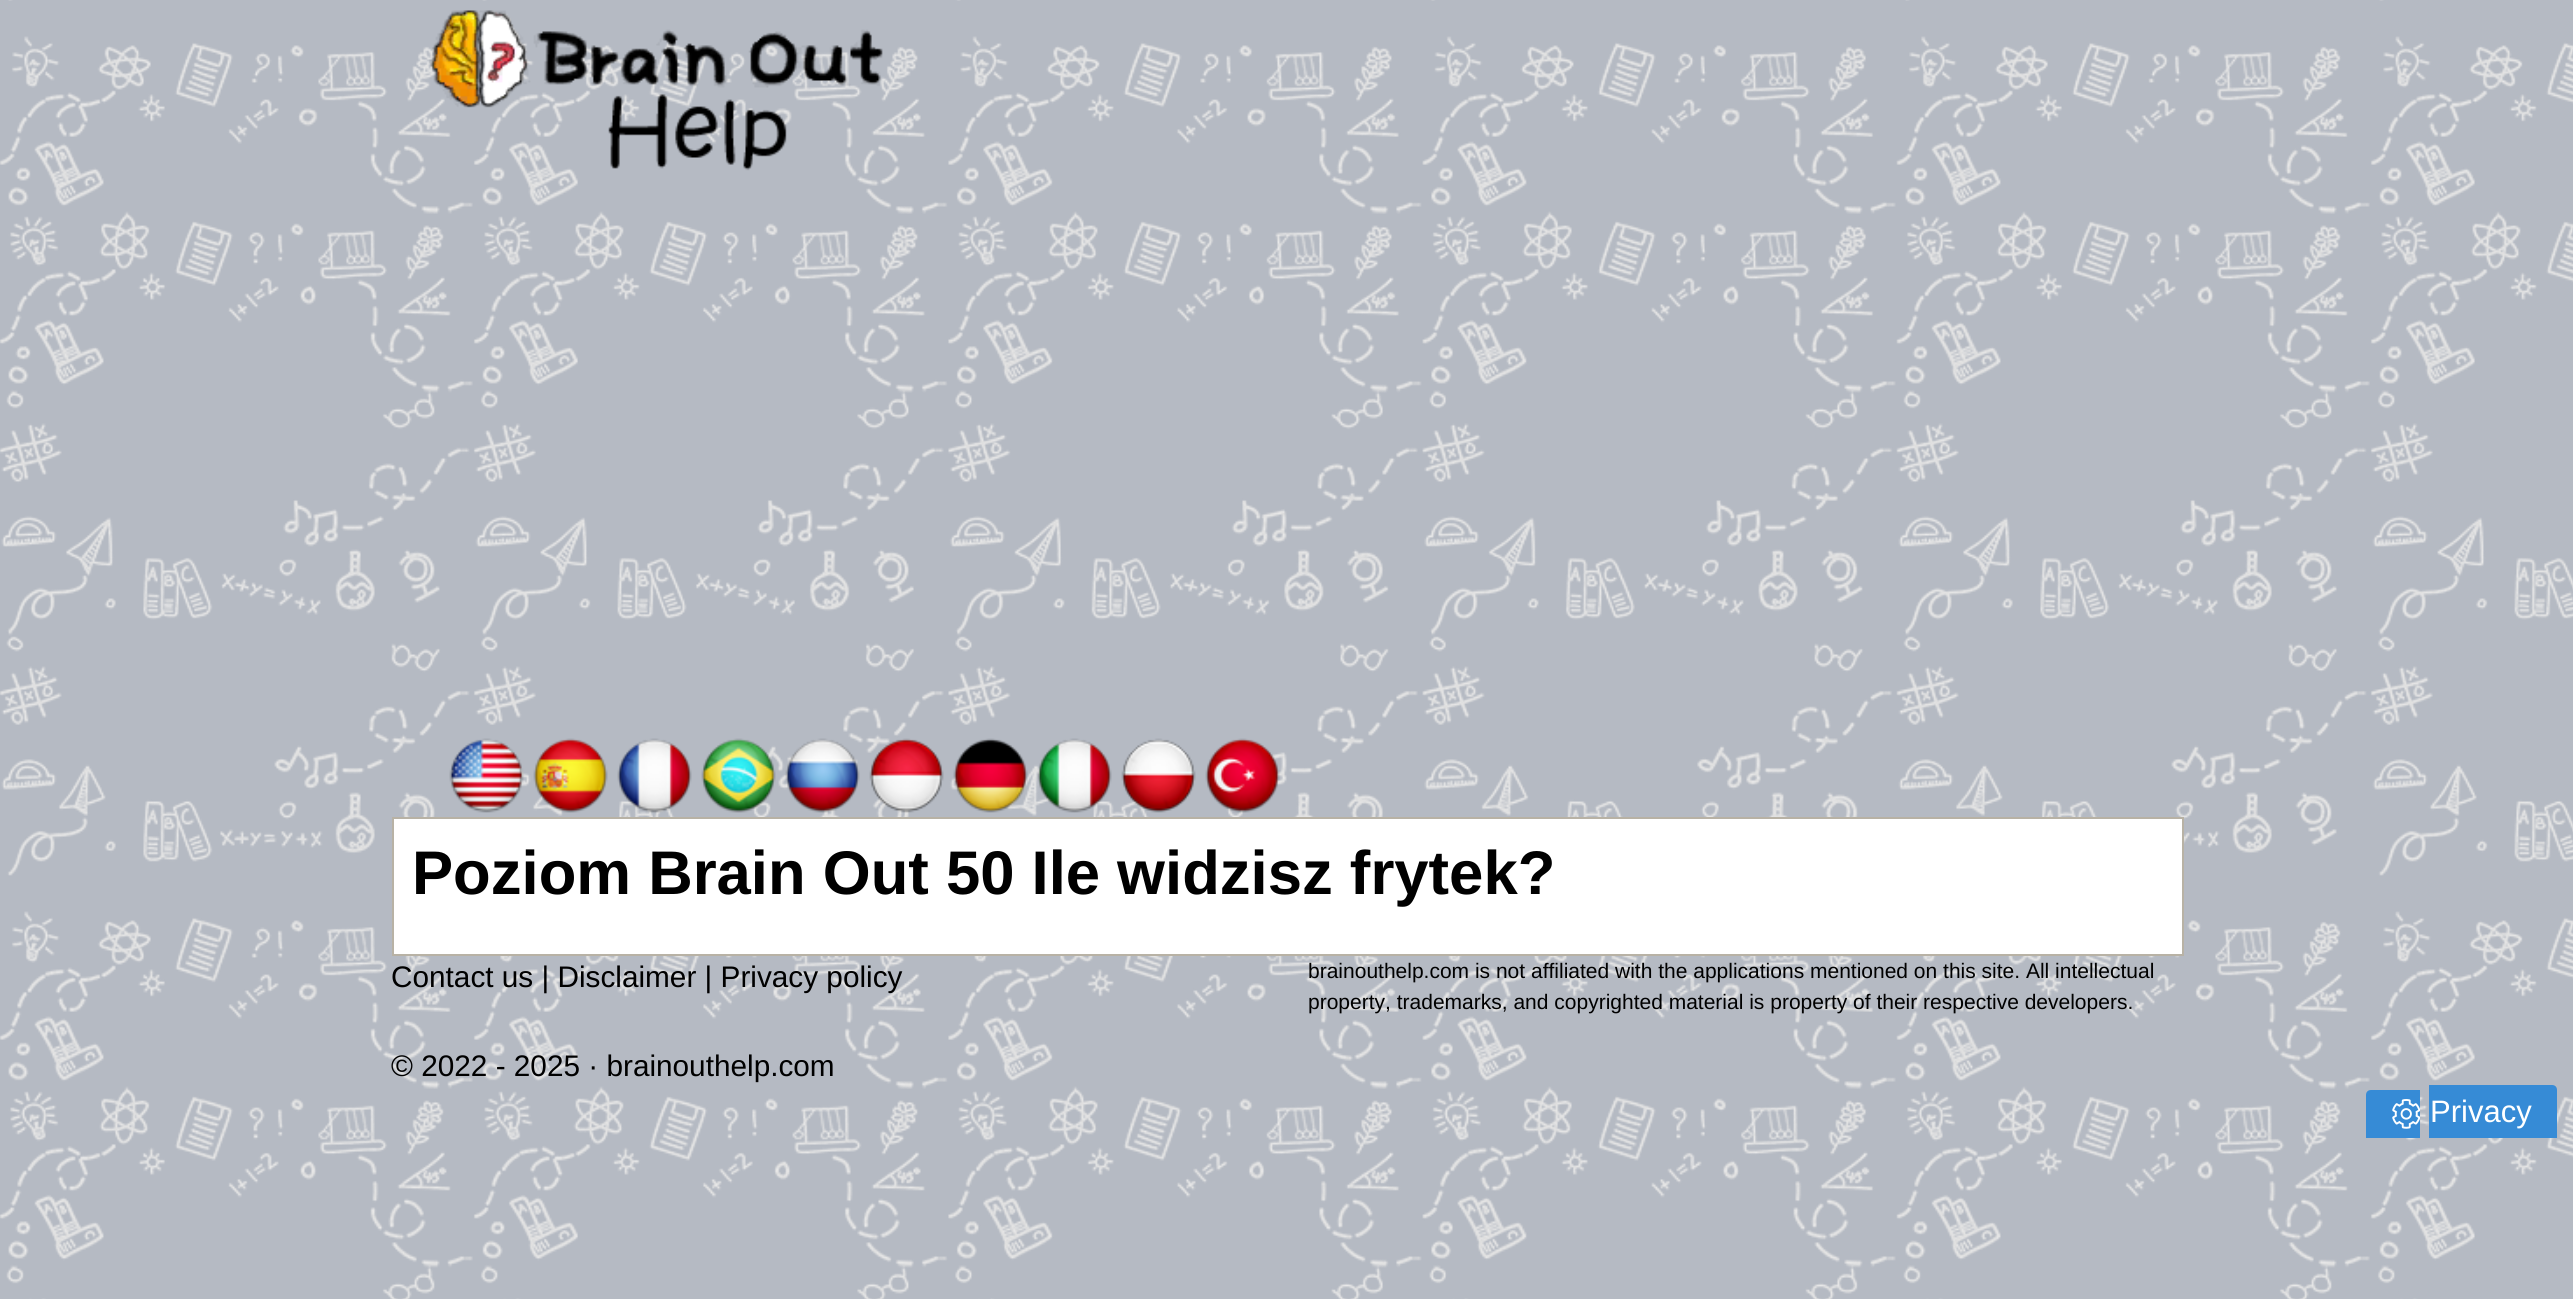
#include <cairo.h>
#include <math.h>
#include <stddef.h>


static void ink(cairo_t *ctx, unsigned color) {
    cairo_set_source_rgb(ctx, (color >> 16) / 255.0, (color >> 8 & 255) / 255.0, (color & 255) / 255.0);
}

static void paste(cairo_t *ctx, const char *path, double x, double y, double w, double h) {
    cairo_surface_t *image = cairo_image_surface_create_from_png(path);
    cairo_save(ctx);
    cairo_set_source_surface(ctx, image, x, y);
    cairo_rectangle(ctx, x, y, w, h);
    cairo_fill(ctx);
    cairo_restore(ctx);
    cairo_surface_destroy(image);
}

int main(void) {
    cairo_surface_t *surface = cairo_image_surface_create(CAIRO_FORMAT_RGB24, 2573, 1299);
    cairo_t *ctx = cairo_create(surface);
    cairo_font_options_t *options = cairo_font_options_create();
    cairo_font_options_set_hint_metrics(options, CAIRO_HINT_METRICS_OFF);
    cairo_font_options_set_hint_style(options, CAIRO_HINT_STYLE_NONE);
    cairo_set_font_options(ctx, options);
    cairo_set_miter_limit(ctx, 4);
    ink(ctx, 0xB5BAC3);
    cairo_paint(ctx);
    paste(ctx, "media/1.png", 0, 0, 2573, 1299);
    paste(ctx, "media/2.png", 429, 10, 454, 161);
    paste(ctx, "media/3.png", 449, 738, 75, 75);
    paste(ctx, "media/4.png", 533, 738, 75, 75);
    paste(ctx, "media/5.png", 617, 738, 75, 75);
    paste(ctx, "media/6.png", 701, 738, 75, 75);
    paste(ctx, "media/7.png", 785, 738, 75, 75);
    paste(ctx, "media/8.png", 869, 738, 75, 75);
    paste(ctx, "media/9.png", 953, 738, 75, 75);
    paste(ctx, "media/10.png", 1037, 738, 75, 75);
    paste(ctx, "media/11.png", 1121, 738, 75, 75);
    paste(ctx, "media/12.png", 1205, 738, 75, 75);
    ink(ctx, 0xFFFFFF);
    cairo_rectangle(ctx, 393, 818, 1790, 137);
    cairo_fill_preserve(ctx);
    ink(ctx, 0xB8B2A5);
    cairo_stroke(ctx);
    cairo_select_font_face(ctx, "Liberation Sans", CAIRO_FONT_SLANT_NORMAL, CAIRO_FONT_WEIGHT_BOLD);
    cairo_set_font_size(ctx, 61.6);
    ink(ctx, 0x000000);
    cairo_move_to(ctx, 412, 894);
    cairo_show_text(ctx, "Poziom Brain Out 50 Ile widzisz frytek?");
    cairo_select_font_face(ctx, "Liberation Sans", CAIRO_FONT_SLANT_NORMAL, CAIRO_FONT_WEIGHT_NORMAL);
    cairo_set_font_size(ctx, 29.75);
    cairo_move_to(ctx, 391, 987);
    cairo_show_text(ctx, "Contact us | Disclaimer | Privacy policy");
    cairo_set_font_size(ctx, 21);
    cairo_move_to(ctx, 1308, 978);
    cairo_show_text(ctx, "brainouthelp.com is not affiliated with the applications mentioned on this site. All intellectual");
    cairo_move_to(ctx, 1308, 1009);
    cairo_show_text(ctx, "property, trademarks, and copyrighted material is property of their respective developers.");
    cairo_set_font_size(ctx, 29.75);
    cairo_move_to(ctx, 391, 1076);
    cairo_show_text(ctx, "© 2022 - 2025 · brainouthelp.com");
    ink(ctx, 0x368BD6);
    cairo_new_path(ctx);
    cairo_move_to(ctx, 2371, 1090);
    cairo_line_to(ctx, 2420, 1090);
    cairo_line_to(ctx, 2420, 1138);
    cairo_line_to(ctx, 2366, 1138);
    cairo_line_to(ctx, 2366, 1095);
    cairo_curve_to(ctx, 2366, 1092, 2368, 1090, 2371, 1090);
    cairo_close_path(ctx);
    cairo_fill(ctx);
    paste(ctx, "media/13.png", 2392, 1099, 28, 30);
    cairo_new_path(ctx);
    cairo_move_to(ctx, 2429, 1085);
    cairo_line_to(ctx, 2552, 1085);
    cairo_curve_to(ctx, 2555, 1085, 2557, 1087, 2557, 1090);
    cairo_line_to(ctx, 2557, 1138);
    cairo_line_to(ctx, 2429, 1138);
    cairo_close_path(ctx);
    cairo_fill(ctx);
    cairo_set_font_size(ctx, 31);
    ink(ctx, 0xFFFFFF);
    cairo_move_to(ctx, 2430, 1122);
    cairo_show_text(ctx, "Privacy");
    cairo_surface_write_to_png(surface, "image.png");
    cairo_font_options_destroy(options);
    cairo_destroy(ctx);
    cairo_surface_destroy(surface);
    return 0;
}
